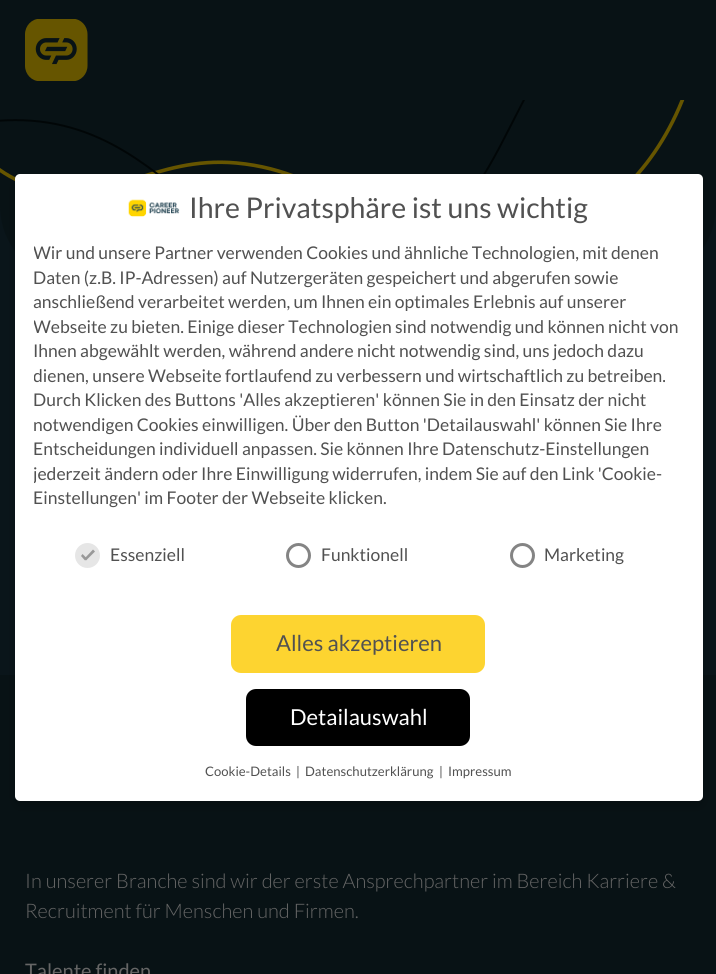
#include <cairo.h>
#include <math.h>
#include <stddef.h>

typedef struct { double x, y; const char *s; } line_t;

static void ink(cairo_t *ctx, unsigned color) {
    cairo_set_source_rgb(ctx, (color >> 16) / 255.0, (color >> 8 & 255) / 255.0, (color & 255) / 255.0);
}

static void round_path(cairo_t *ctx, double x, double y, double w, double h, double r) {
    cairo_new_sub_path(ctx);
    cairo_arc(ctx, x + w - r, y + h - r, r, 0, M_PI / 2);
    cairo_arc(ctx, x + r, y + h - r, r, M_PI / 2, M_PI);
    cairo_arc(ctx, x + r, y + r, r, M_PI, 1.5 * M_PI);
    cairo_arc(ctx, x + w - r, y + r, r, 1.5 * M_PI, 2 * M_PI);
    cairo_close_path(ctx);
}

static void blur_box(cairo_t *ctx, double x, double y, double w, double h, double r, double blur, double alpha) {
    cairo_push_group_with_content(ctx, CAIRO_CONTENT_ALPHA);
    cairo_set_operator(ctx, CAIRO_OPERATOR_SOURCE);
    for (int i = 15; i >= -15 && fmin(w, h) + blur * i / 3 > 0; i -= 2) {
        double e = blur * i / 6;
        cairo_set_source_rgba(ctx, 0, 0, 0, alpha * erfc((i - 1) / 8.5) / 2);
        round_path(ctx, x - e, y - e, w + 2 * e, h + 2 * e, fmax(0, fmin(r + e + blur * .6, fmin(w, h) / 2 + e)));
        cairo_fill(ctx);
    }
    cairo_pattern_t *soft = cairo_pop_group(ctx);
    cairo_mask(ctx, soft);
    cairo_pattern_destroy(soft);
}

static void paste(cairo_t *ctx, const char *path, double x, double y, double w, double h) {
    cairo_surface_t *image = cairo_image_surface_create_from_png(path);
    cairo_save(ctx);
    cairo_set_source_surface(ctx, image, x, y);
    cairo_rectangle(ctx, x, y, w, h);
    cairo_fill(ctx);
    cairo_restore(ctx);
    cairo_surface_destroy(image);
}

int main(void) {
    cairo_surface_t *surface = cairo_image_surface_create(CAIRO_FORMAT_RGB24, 716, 974);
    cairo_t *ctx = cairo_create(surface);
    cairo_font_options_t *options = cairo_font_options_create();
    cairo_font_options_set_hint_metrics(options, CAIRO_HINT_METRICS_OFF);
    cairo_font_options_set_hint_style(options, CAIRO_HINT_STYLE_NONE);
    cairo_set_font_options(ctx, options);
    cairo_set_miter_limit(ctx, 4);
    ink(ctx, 0x0A151A);
    cairo_paint(ctx);
    ink(ctx, 0x081215);
    cairo_new_path(ctx);
    cairo_move_to(ctx, 0, 31);
    cairo_line_to(ctx, 716, 31);
    cairo_line_to(ctx, 716, 206);
    cairo_curve_to(ctx, 716, 247.5, 682.5, 281, 641, 281);
    cairo_line_to(ctx, 75, 281);
    cairo_curve_to(ctx, 33.5, 281, 0, 247.5, 0, 206);
    cairo_close_path(ctx);
    cairo_fill(ctx);
    cairo_new_path(ctx);
    cairo_move_to(ctx, -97, -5);
    cairo_curve_to(ctx, -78.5, 106.5, -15, 173.5, 33, 186);
    cairo_curve_to(ctx, 110.5, 207, 153, 155.5, 236.5, 163);
    cairo_curve_to(ctx, 333.5, 172, 371.5, 237.5, 463.5, 248);
    cairo_curve_to(ctx, 551, 258, 701, 192.5, 708, -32.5);
    ink(ctx, 0x665500);
    cairo_set_line_width(ctx, 3.6);
    cairo_stroke(ctx);
    cairo_new_path(ctx);
    cairo_move_to(ctx, -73.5, 135.5);
    cairo_curve_to(ctx, 163.5, 59, 193, 294.5, 352.5, 265.5);
    cairo_curve_to(ctx, 521, 234, 485.5, 78.5, 625.5, -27);
    ink(ctx, 0x010607);
    cairo_set_line_width(ctx, 2);
    cairo_stroke(ctx);
    ink(ctx, 0x081215);
    cairo_new_path(ctx);
    cairo_move_to(ctx, 0, 0);
    cairo_line_to(ctx, 716, 0);
    cairo_line_to(ctx, 716, 70);
    cairo_curve_to(ctx, 716, 86.5, 702.5, 100, 686, 100);
    cairo_line_to(ctx, 30, 100);
    cairo_curve_to(ctx, 13.5, 100, 0, 86.5, 0, 70);
    cairo_close_path(ctx);
    cairo_fill(ctx);
    paste(ctx, "media/1.png", 25, 19, 63, 62);
    cairo_rectangle(ctx, 0, 675, 716, 299);
    cairo_fill(ctx);
    ink(ctx, 0x000000);
    blur_box(ctx, 15, 179, 688, 627, 5, 5, 0.2);
    ink(ctx, 0xFFFFFF);
    round_path(ctx, 15, 174, 688, 627, 5);
    cairo_fill(ctx);
    paste(ctx, "media/2.png", 128, 199, 52, 18);
    cairo_select_font_face(ctx, "Lato", CAIRO_FONT_SLANT_NORMAL, CAIRO_FONT_WEIGHT_NORMAL);
    cairo_set_font_size(ctx, 28.5);
    ink(ctx, 0x515151);
    cairo_move_to(ctx, 189, 218);
    cairo_show_text(ctx, "Ihre Privatsphäre ist uns wichtig");
    cairo_save(ctx);
    cairo_rectangle(ctx, 34, 240, 650, 270);
    cairo_clip(ctx);
    cairo_set_font_size(ctx, 17.5);
    cairo_move_to(ctx, 33, 259);
    cairo_show_text(ctx, "Wir und unsere Partner verwenden Cookies und ähnliche Technologien, mit denen");
    cairo_restore(ctx);
    cairo_set_font_size(ctx, 17.5);
    cairo_move_to(ctx, 33, 284);
    cairo_show_text(ctx, "Daten (z.B. IP-Adressen) auf Nutzergeräten gespeichert und abgerufen sowie");
    cairo_move_to(ctx, 33, 308);
    cairo_show_text(ctx, "anschließend verarbeitet werden, um Ihnen ein optimales Erlebnis auf unserer");
    cairo_save(ctx);
    cairo_rectangle(ctx, 34, 240, 650, 270);
    cairo_clip(ctx);
    cairo_move_to(ctx, 33, 333);
    cairo_show_text(ctx, "Webseite zu bieten. Einige dieser Technologien sind notwendig und können nicht von");
    cairo_restore(ctx);
    cairo_move_to(ctx, 33, 357);
    cairo_show_text(ctx, "Ihnen abgewählt werden, während andere nicht notwendig sind, uns jedoch dazu");
    cairo_save(ctx);
    cairo_rectangle(ctx, 34, 240, 650, 270);
    cairo_clip(ctx);
    cairo_move_to(ctx, 33, 382);
    cairo_show_text(ctx, "dienen, unsere Webseite fortlaufend zu verbessern und wirtschaftlich zu betreiben.");
    cairo_restore(ctx);
    {
        static const line_t items[] = {
            {33, 406, "Durch Klicken des Buttons 'Alles akzeptieren' können Sie in den Einsatz der nicht"},
            {33, 431, "notwendigen Cookies einwilligen. Über den Button 'Detailauswahl' können Sie Ihre"},
            {33, 455, "Entscheidungen individuell anpassen. Sie können Ihre Datenschutz-Einstellungen"},
        };
        for (size_t i = 0; i < sizeof items / sizeof *items; i++) {
            cairo_move_to(ctx, items[i].x, items[i].y);
            cairo_show_text(ctx, items[i].s);
        }
    }
    cairo_save(ctx);
    cairo_rectangle(ctx, 34, 240, 650, 270);
    cairo_clip(ctx);
    cairo_move_to(ctx, 33, 480);
    cairo_show_text(ctx, "jederzeit ändern oder Ihre Einwilligung widerrufen, indem Sie auf den Link 'Cookie-");
    cairo_restore(ctx);
    cairo_move_to(ctx, 33, 504);
    cairo_show_text(ctx, "Einstellungen' im Footer der Webseite klicken.");
    ink(ctx, 0xE6E6E6);
    cairo_new_path(ctx);
    cairo_arc(ctx, 87.5, 555.5, 11, 0, 2 * M_PI);
    cairo_fill_preserve(ctx);
    cairo_set_line_width(ctx, 3);
    cairo_stroke(ctx);
    ink(ctx, 0x999999);
    cairo_new_path(ctx);
    cairo_move_to(ctx, 93, 549.5);
    cairo_line_to(ctx, 95, 551.5);
    cairo_line_to(ctx, 86, 560.5);
    cairo_line_to(ctx, 84.5, 558.5);
    cairo_close_path(ctx);
    cairo_fill(ctx);
    cairo_new_path(ctx);
    cairo_move_to(ctx, 82.5, 554);
    cairo_line_to(ctx, 87, 558.5);
    cairo_line_to(ctx, 85, 560.5);
    cairo_line_to(ctx, 81, 556);
    cairo_close_path(ctx);
    cairo_fill(ctx);
    ink(ctx, 0x515151);
    cairo_move_to(ctx, 110, 561);
    cairo_show_text(ctx, "Essenziell");
    cairo_new_path(ctx);
    cairo_arc(ctx, 298.5, 555.5, 11, 0, 2 * M_PI);
    ink(ctx, 0x848484);
    cairo_stroke(ctx);
    ink(ctx, 0x515151);
    cairo_move_to(ctx, 321, 561);
    cairo_show_text(ctx, "Funktionell");
    cairo_new_path(ctx);
    cairo_arc(ctx, 522.5, 555.5, 11, 0, 2 * M_PI);
    ink(ctx, 0x848484);
    cairo_stroke(ctx);
    ink(ctx, 0x515151);
    cairo_move_to(ctx, 544, 561);
    cairo_show_text(ctx, "Marketing");
    ink(ctx, 0xFDD430);
    round_path(ctx, 231, 615, 254, 58, 10);
    cairo_fill(ctx);
    cairo_set_font_size(ctx, 22);
    ink(ctx, 0x515151);
    cairo_move_to(ctx, 276, 651);
    cairo_show_text(ctx, "Alles akzeptieren");
    ink(ctx, 0x000000);
    round_path(ctx, 246, 689, 224, 57, 10);
    cairo_fill(ctx);
    ink(ctx, 0xFFFFFF);
    cairo_move_to(ctx, 290, 725);
    cairo_show_text(ctx, "Detailauswahl");
    cairo_set_font_size(ctx, 13.1);
    ink(ctx, 0x515151);
    {
        static const line_t items[] = {
            {205, 776, "Cookie-Details"},
            {296, 776, "|"},
            {305, 776, "Datenschutzerklärung"},
            {439, 776, "|"},
            {448, 776, "Impressum"},
        };
        for (size_t i = 0; i < sizeof items / sizeof *items; i++) {
            cairo_move_to(ctx, items[i].x, items[i].y);
            cairo_show_text(ctx, items[i].s);
        }
    }
    cairo_select_font_face(ctx, "Lato Light", CAIRO_FONT_SLANT_NORMAL, CAIRO_FONT_WEIGHT_NORMAL);
    cairo_set_font_size(ctx, 20);
    ink(ctx, 0x666666);
    cairo_move_to(ctx, 25, 888);
    cairo_show_text(ctx, "In unserer Branche sind wir der erste Ansprechpartner im Bereich Karriere &");
    cairo_move_to(ctx, 25, 918);
    cairo_show_text(ctx, "Recruitment für Menschen und Firmen.");
    cairo_select_font_face(ctx, "Lato", CAIRO_FONT_SLANT_NORMAL, CAIRO_FONT_WEIGHT_NORMAL);
    cairo_move_to(ctx, 25, 978);
    cairo_show_text(ctx, "Talente finden");
    cairo_surface_write_to_png(surface, "image.png");
    cairo_font_options_destroy(options);
    cairo_destroy(ctx);
    cairo_surface_destroy(surface);
    return 0;
}
